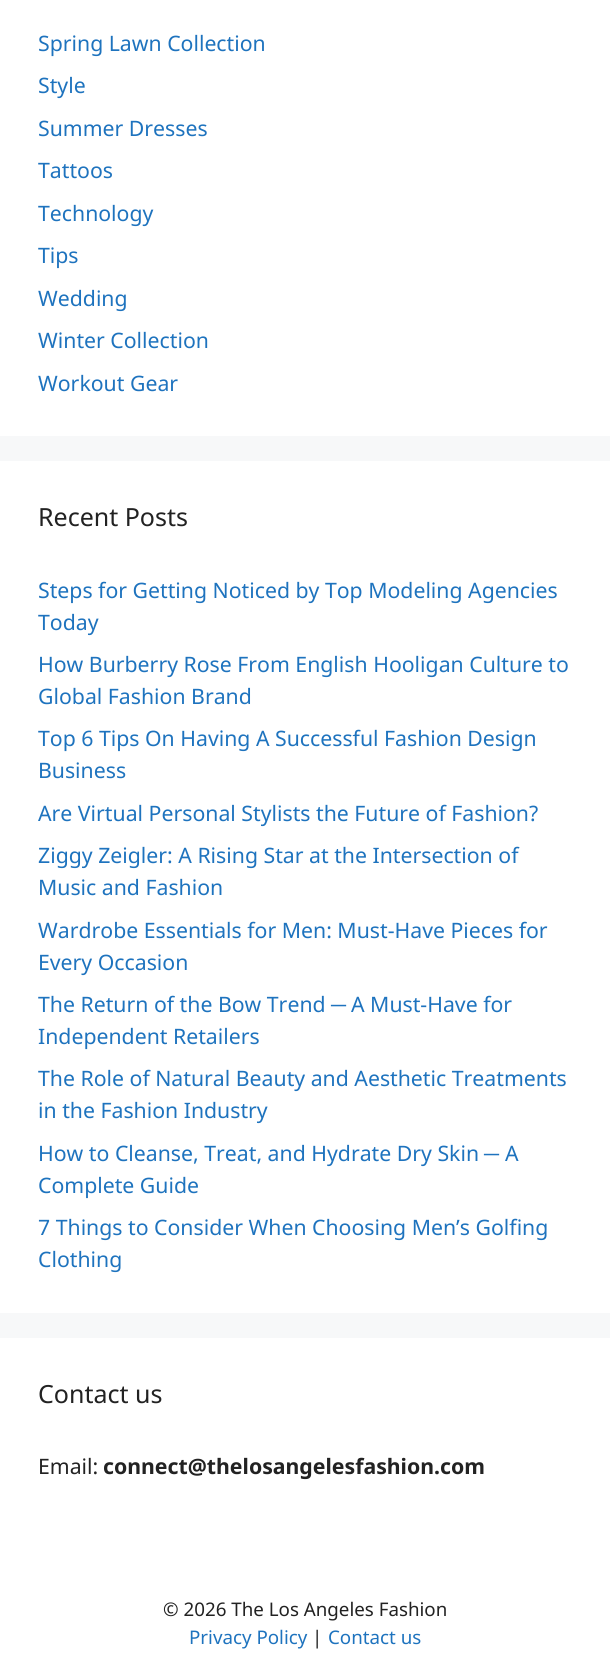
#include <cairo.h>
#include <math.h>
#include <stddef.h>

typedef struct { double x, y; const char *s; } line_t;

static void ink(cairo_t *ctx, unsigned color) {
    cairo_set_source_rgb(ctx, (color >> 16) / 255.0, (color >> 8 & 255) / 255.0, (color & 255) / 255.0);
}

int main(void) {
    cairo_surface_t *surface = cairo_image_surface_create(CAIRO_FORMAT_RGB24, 610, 1676);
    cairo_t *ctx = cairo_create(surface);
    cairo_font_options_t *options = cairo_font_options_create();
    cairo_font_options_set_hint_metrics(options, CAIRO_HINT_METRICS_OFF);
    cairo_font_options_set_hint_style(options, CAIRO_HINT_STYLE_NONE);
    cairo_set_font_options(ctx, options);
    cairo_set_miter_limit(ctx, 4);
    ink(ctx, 0xF7F8F9);
    cairo_paint(ctx);
    ink(ctx, 0xFFFFFF);
    cairo_rectangle(ctx, 0, 0, 610, 436);
    cairo_fill(ctx);
    cairo_select_font_face(ctx, "Noto Sans", CAIRO_FONT_SLANT_NORMAL, CAIRO_FONT_WEIGHT_NORMAL);
    cairo_set_font_size(ctx, 21.25);
    ink(ctx, 0x1E73BE);
    {
        static const line_t items[] = {
            {38, 51, "Spring Lawn Collection"},
            {38, 93, "Style"},
            {38, 136, "Summer Dresses"},
            {38, 178, "Tattoos"},
            {38, 221, "Technology"},
            {38, 263, "Tips"},
            {38, 306, "Wedding"},
            {38, 348, "Winter Collection"},
            {38, 391, "Workout Gear"},
        };
        for (size_t i = 0; i < sizeof items / sizeof *items; i++) {
            cairo_move_to(ctx, items[i].x, items[i].y);
            cairo_show_text(ctx, items[i].s);
        }
    }
    ink(ctx, 0xFFFFFF);
    cairo_rectangle(ctx, 0, 461, 610, 852);
    cairo_fill(ctx);
    cairo_set_font_size(ctx, 25);
    ink(ctx, 0x222222);
    cairo_move_to(ctx, 38, 526);
    cairo_show_text(ctx, "Recent Posts");
    cairo_set_font_size(ctx, 21.25);
    ink(ctx, 0x1E73BE);
    {
        static const line_t items[] = {
            {38, 598, "Steps for Getting Noticed by Top Modeling Agencies"},
            {38, 630, "Today"},
            {38, 672, "How Burberry Rose From English Hooligan Culture to"},
            {38, 704, "Global Fashion Brand"},
            {38, 746, "Top 6 Tips On Having A Successful Fashion Design"},
            {38, 778, "Business"},
            {38, 821, "Are Virtual Personal Stylists the Future of Fashion?"},
            {38, 863, "Ziggy Zeigler: A Rising Star at the Intersection of"},
            {38, 895, "Music and Fashion"},
            {38, 938, "Wardrobe Essentials for Men: Must-Have Pieces for"},
            {38, 970, "Every Occasion"},
            {38, 1012, "The Return of the Bow Trend"},
        };
        for (size_t i = 0; i < sizeof items / sizeof *items; i++) {
            cairo_move_to(ctx, items[i].x, items[i].y);
            cairo_show_text(ctx, items[i].s);
        }
    }
    cairo_select_font_face(ctx, "Liberation Sans", CAIRO_FONT_SLANT_NORMAL, CAIRO_FONT_WEIGHT_NORMAL);
    cairo_move_to(ctx, 331, 1012);
    cairo_show_text(ctx, "─");
    cairo_select_font_face(ctx, "Noto Sans", CAIRO_FONT_SLANT_NORMAL, CAIRO_FONT_WEIGHT_NORMAL);
    {
        static const line_t items[] = {
            {351, 1012, "A Must-Have for"},
            {38, 1044, "Independent Retailers"},
            {38, 1086, "The Role of Natural Beauty and Aesthetic Treatments"},
            {38, 1118, "in the Fashion Industry"},
            {38, 1161, "How to Cleanse, Treat, and Hydrate Dry Skin"},
        };
        for (size_t i = 0; i < sizeof items / sizeof *items; i++) {
            cairo_move_to(ctx, items[i].x, items[i].y);
            cairo_show_text(ctx, items[i].s);
        }
    }
    cairo_select_font_face(ctx, "Liberation Sans", CAIRO_FONT_SLANT_NORMAL, CAIRO_FONT_WEIGHT_NORMAL);
    cairo_move_to(ctx, 484, 1161);
    cairo_show_text(ctx, "─");
    cairo_select_font_face(ctx, "Noto Sans", CAIRO_FONT_SLANT_NORMAL, CAIRO_FONT_WEIGHT_NORMAL);
    {
        static const line_t items[] = {
            {505, 1161, "A"},
            {38, 1193, "Complete Guide"},
            {38, 1235, "7 Things to Consider When Choosing Men’s Golfing"},
            {38, 1267, "Clothing"},
        };
        for (size_t i = 0; i < sizeof items / sizeof *items; i++) {
            cairo_move_to(ctx, items[i].x, items[i].y);
            cairo_show_text(ctx, items[i].s);
        }
    }
    ink(ctx, 0xFFFFFF);
    cairo_rectangle(ctx, 0, 1338, 610, 338);
    cairo_fill(ctx);
    cairo_set_font_size(ctx, 25);
    ink(ctx, 0x222222);
    cairo_move_to(ctx, 38, 1403);
    cairo_show_text(ctx, "Contact us");
    cairo_set_font_size(ctx, 21.25);
    cairo_move_to(ctx, 38, 1474);
    cairo_show_text(ctx, "Email:");
    cairo_select_font_face(ctx, "Noto Sans", CAIRO_FONT_SLANT_NORMAL, CAIRO_FONT_WEIGHT_BOLD);
    cairo_move_to(ctx, 103, 1474);
    cairo_show_text(ctx, "connect@thelosangelesfashion.com");
    cairo_select_font_face(ctx, "Noto Sans", CAIRO_FONT_SLANT_NORMAL, CAIRO_FONT_WEIGHT_NORMAL);
    cairo_set_font_size(ctx, 18.75);
    cairo_move_to(ctx, 163, 1616);
    cairo_show_text(ctx, "© 2026 The Los Angeles Fashion");
    ink(ctx, 0x1E73BE);
    cairo_move_to(ctx, 189, 1644);
    cairo_show_text(ctx, "Privacy Policy");
    ink(ctx, 0x222222);
    cairo_move_to(ctx, 312, 1644);
    cairo_show_text(ctx, "|");
    ink(ctx, 0x1E73BE);
    cairo_move_to(ctx, 328, 1644);
    cairo_show_text(ctx, "Contact us");
    cairo_surface_write_to_png(surface, "image.png");
    cairo_font_options_destroy(options);
    cairo_destroy(ctx);
    cairo_surface_destroy(surface);
    return 0;
}
